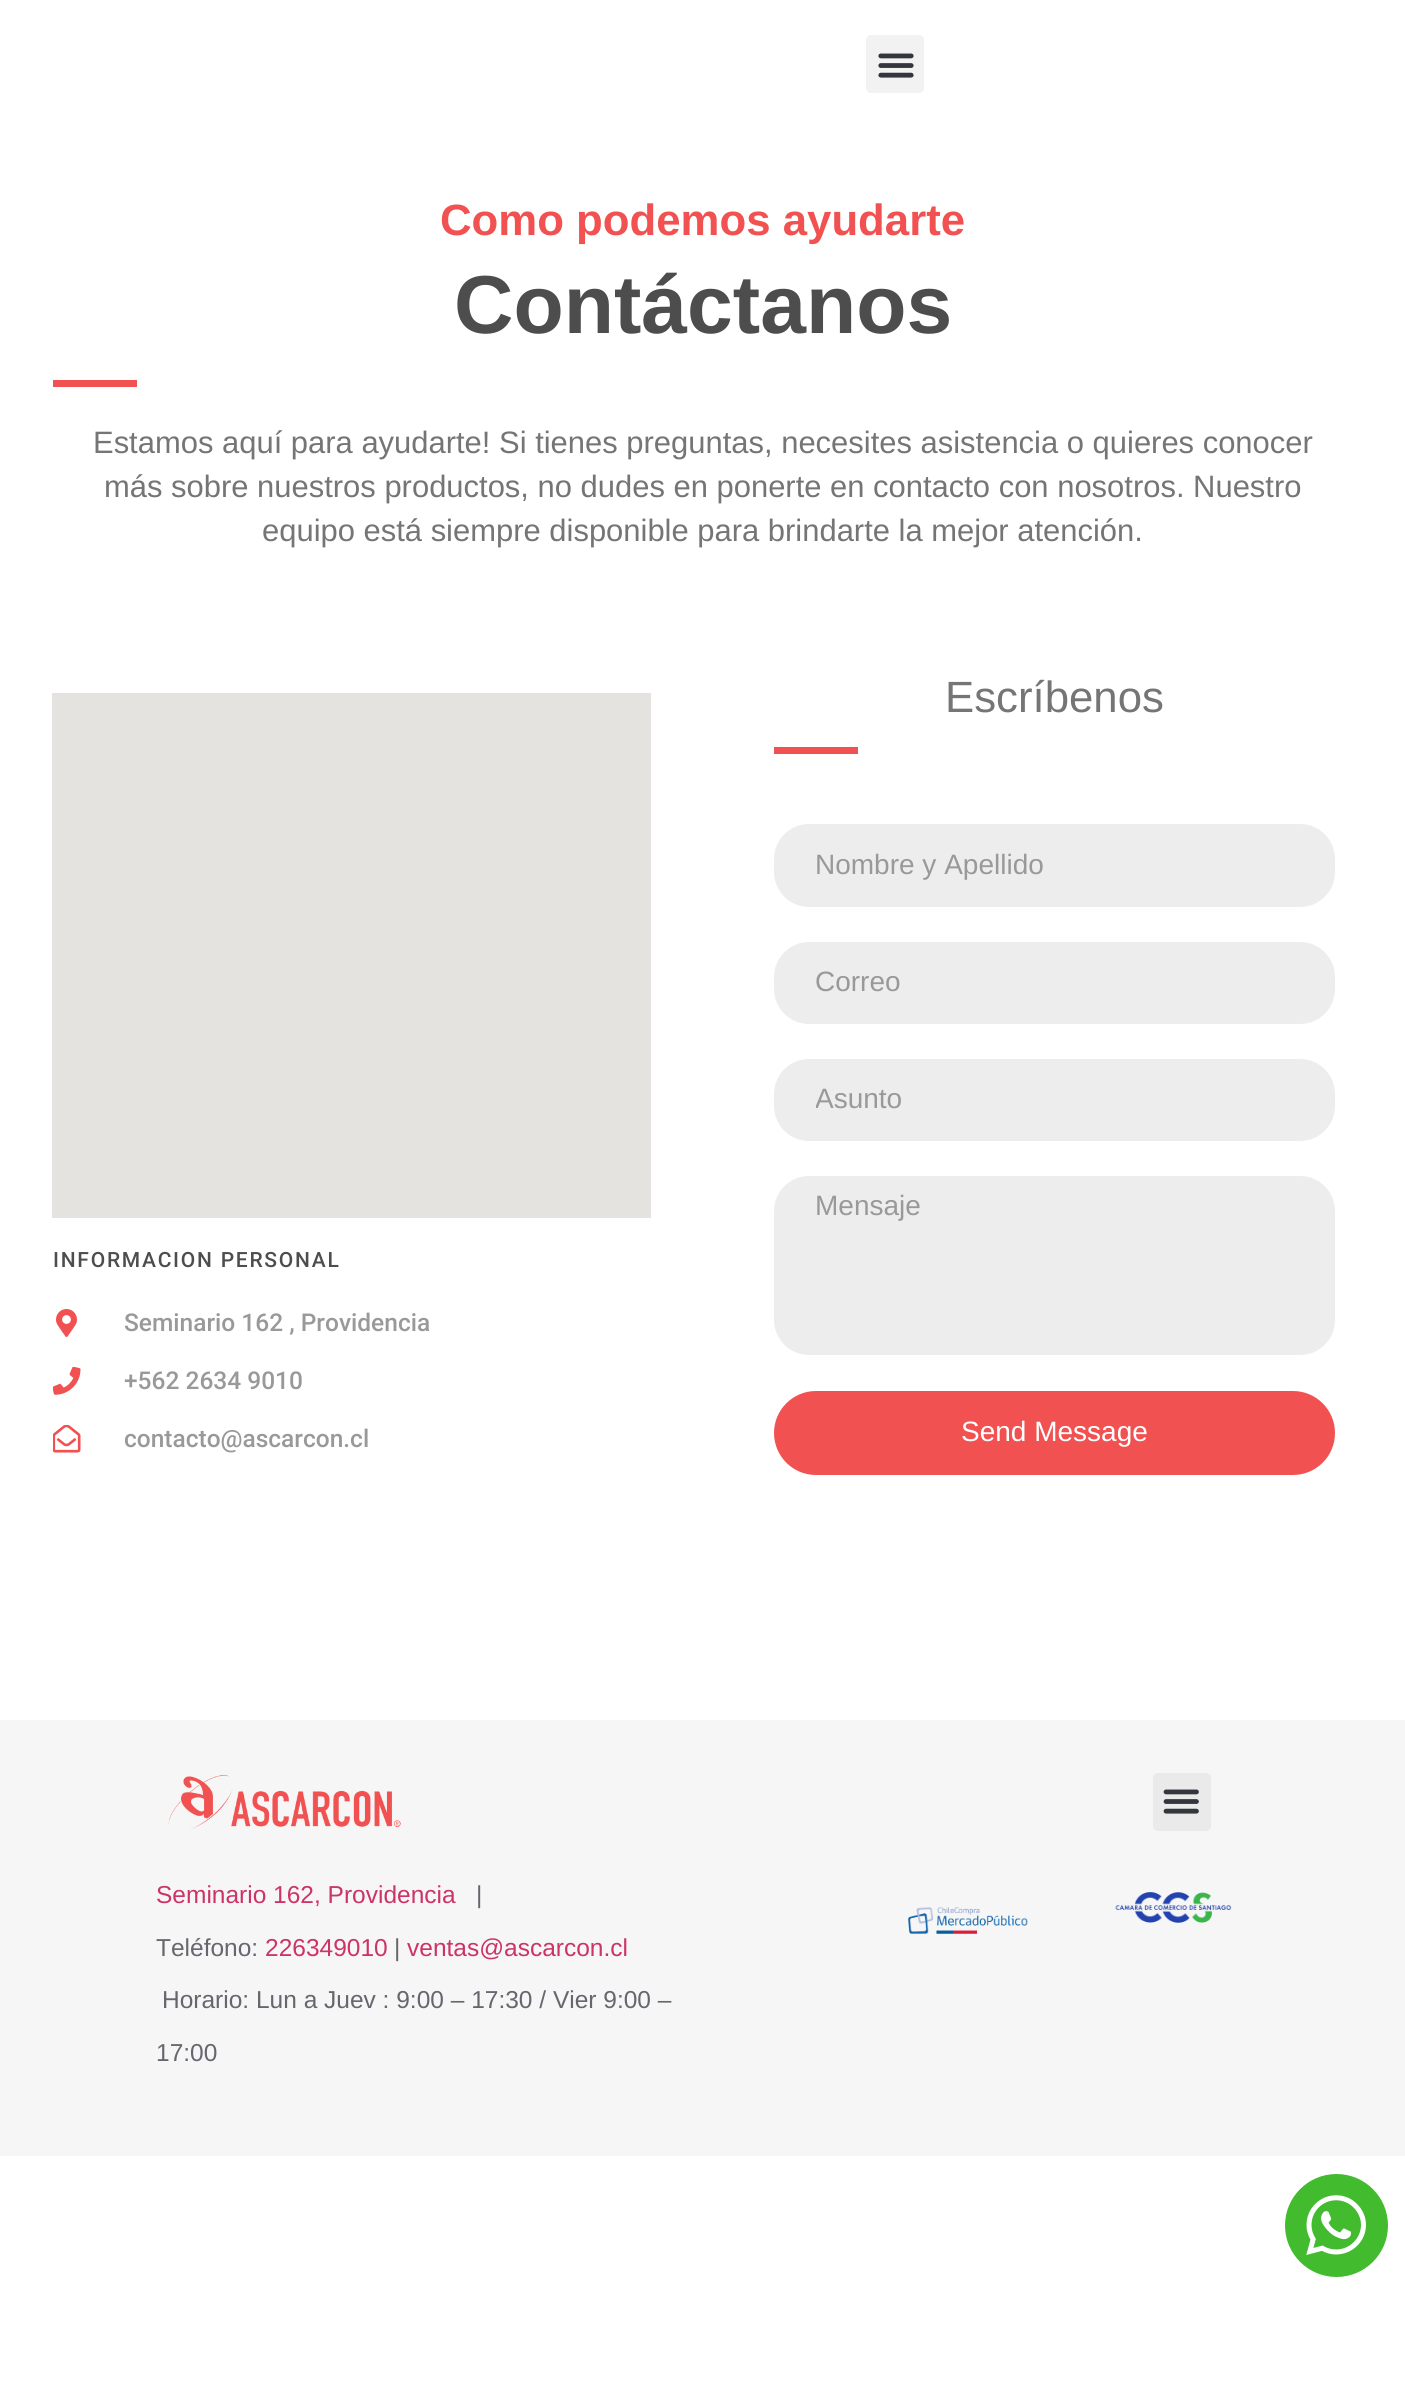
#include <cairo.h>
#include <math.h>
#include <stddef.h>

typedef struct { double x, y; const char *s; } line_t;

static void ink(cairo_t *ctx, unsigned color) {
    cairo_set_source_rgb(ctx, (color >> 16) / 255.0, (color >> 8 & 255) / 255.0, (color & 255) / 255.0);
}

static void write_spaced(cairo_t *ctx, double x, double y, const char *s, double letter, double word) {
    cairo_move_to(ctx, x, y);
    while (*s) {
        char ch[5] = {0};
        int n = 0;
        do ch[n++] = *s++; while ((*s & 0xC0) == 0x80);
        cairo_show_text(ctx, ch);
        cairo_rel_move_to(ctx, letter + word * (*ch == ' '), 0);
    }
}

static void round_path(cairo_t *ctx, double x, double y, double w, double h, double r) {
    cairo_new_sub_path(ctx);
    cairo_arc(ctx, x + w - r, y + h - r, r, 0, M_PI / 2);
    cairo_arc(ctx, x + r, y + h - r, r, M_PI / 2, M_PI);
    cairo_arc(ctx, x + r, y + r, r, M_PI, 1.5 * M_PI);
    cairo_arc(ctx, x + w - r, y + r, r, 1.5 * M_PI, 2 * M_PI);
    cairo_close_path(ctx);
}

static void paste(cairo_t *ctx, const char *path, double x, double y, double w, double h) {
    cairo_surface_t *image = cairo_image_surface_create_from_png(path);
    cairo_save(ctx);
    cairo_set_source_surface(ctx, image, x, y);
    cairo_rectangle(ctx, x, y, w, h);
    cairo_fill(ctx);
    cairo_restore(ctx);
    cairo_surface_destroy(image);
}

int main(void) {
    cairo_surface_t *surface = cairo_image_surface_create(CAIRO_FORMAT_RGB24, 1405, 2391);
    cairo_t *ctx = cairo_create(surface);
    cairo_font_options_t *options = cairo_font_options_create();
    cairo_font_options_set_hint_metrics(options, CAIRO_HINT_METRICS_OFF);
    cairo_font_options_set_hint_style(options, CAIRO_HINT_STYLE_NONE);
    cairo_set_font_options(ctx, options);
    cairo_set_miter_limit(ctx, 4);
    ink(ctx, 0xFFFFFF);
    cairo_paint(ctx);
    ink(ctx, 0xF2F2F2);
    round_path(ctx, 866, 35, 58, 58, 5);
    cairo_fill(ctx);
    paste(ctx, "media/1.png", 878, 53, 36, 25);
    cairo_select_font_face(ctx, "Liberation Sans", CAIRO_FONT_SLANT_NORMAL, CAIRO_FONT_WEIGHT_BOLD);
    cairo_set_font_size(ctx, 43.75);
    ink(ctx, 0xF15151);
    cairo_move_to(ctx, 440, 235);
    cairo_show_text(ctx, "Como podemos ayudarte");
    cairo_set_font_size(ctx, 82.25);
    ink(ctx, 0x4D4D4D);
    cairo_move_to(ctx, 454, 333);
    cairo_show_text(ctx, "Contáctanos");
    ink(ctx, 0xF15151);
    cairo_rectangle(ctx, 53, 380, 84, 7);
    cairo_fill(ctx);
    cairo_select_font_face(ctx, "Liberation Sans", CAIRO_FONT_SLANT_NORMAL, CAIRO_FONT_WEIGHT_NORMAL);
    cairo_set_font_size(ctx, 30.95);
    ink(ctx, 0x757575);
    {
        static const line_t items[] = {
            {93, 453, "Estamos aquí para ayudarte! Si tienes preguntas, necesites asistencia o quieres conocer"},
            {104, 497, "más sobre nuestros productos, no dudes en ponerte en contacto con nosotros. Nuestro"},
            {262, 541, "equipo está siempre disponible para brindarte la mejor atención."},
        };
        for (size_t i = 0; i < sizeof items / sizeof *items; i++) {
            cairo_move_to(ctx, items[i].x, items[i].y);
            cairo_show_text(ctx, items[i].s);
        }
    }
    ink(ctx, 0xE5E3DF);
    cairo_rectangle(ctx, 52, 693, 599, 525);
    cairo_fill(ctx);
    cairo_select_font_face(ctx, "Roboto Medium", CAIRO_FONT_SLANT_NORMAL, CAIRO_FONT_WEIGHT_NORMAL);
    cairo_set_font_size(ctx, 21);
    ink(ctx, 0x4D4D4D);
    write_spaced(ctx, 53, 1267, "INFORMACION PERSONAL", 1.75, 0);
    paste(ctx, "media/2.png", 56, 1309, 21, 28);
    cairo_set_font_size(ctx, 24.5);
    ink(ctx, 0x999999);
    cairo_move_to(ctx, 124, 1331);
    cairo_show_text(ctx, "Seminario 162 , Providencia");
    paste(ctx, "media/3.png", 53, 1367, 28, 28);
    cairo_move_to(ctx, 124, 1389);
    cairo_show_text(ctx, "+562 2634 9010");
    paste(ctx, "media/4.png", 53, 1425, 28, 28);
    cairo_move_to(ctx, 124, 1447);
    cairo_show_text(ctx, "contacto@ascarcon.cl");
    cairo_select_font_face(ctx, "Liberation Sans", CAIRO_FONT_SLANT_NORMAL, CAIRO_FONT_WEIGHT_NORMAL);
    cairo_set_font_size(ctx, 43.75);
    ink(ctx, 0x757575);
    cairo_move_to(ctx, 945, 712);
    cairo_show_text(ctx, "Escríbenos");
    ink(ctx, 0xF15151);
    cairo_rectangle(ctx, 774, 747, 84, 7);
    cairo_fill(ctx);
    ink(ctx, 0xEDEDED);
    round_path(ctx, 774, 824, 561, 83, 35);
    cairo_fill(ctx);
    cairo_set_font_size(ctx, 28);
    ink(ctx, 0x999999);
    cairo_move_to(ctx, 815, 874);
    cairo_show_text(ctx, "Nombre y Apellido");
    ink(ctx, 0xEDEDED);
    round_path(ctx, 774, 942, 561, 82, 35);
    cairo_fill(ctx);
    ink(ctx, 0x999999);
    cairo_move_to(ctx, 815, 991);
    cairo_show_text(ctx, "Correo");
    ink(ctx, 0xEDEDED);
    round_path(ctx, 774, 1059, 561, 82, 35);
    cairo_fill(ctx);
    cairo_save(ctx);
    cairo_rectangle(ctx, 816, 1083, 477, 32);
    cairo_clip(ctx);
    ink(ctx, 0x999999);
    cairo_move_to(ctx, 815, 1108);
    cairo_show_text(ctx, "Asunto");
    cairo_restore(ctx);
    round_path(ctx, 774, 1176, 561, 179, 35);
    cairo_fill(ctx);
    ink(ctx, 0x999999);
    cairo_move_to(ctx, 815, 1215);
    cairo_show_text(ctx, "Mensaje");
    ink(ctx, 0xF15151);
    round_path(ctx, 775, 1392, 559, 82, 41);
    cairo_fill_preserve(ctx);
    cairo_stroke(ctx);
    ink(ctx, 0xFFFFFF);
    cairo_move_to(ctx, 961, 1441);
    cairo_show_text(ctx, "Send Message");
    ink(ctx, 0xF6F6F6);
    cairo_rectangle(ctx, 0, 1720, 1405, 436);
    cairo_fill(ctx);
    paste(ctx, "media/5.png", 168, 1774, 233, 56);
    ink(ctx, 0xEAEAEA);
    round_path(ctx, 1153, 1773, 58, 58, 5);
    cairo_fill(ctx);
    paste(ctx, "media/6.png", 1163, 1789, 36, 25);
    cairo_set_font_size(ctx, 24.5);
    ink(ctx, 0xCC3366);
    cairo_move_to(ctx, 156, 1903);
    cairo_show_text(ctx, "Seminario 162, Providencia");
    ink(ctx, 0x66666E);
    cairo_move_to(ctx, 476, 1903);
    cairo_show_text(ctx, "|");
    cairo_move_to(ctx, 156, 1956);
    cairo_show_text(ctx, "Teléfono:");
    ink(ctx, 0xCC3366);
    cairo_move_to(ctx, 265, 1956);
    cairo_show_text(ctx, "226349010");
    ink(ctx, 0x66666E);
    cairo_move_to(ctx, 394, 1956);
    cairo_show_text(ctx, "|");
    ink(ctx, 0xCC3366);
    cairo_move_to(ctx, 407, 1956);
    cairo_show_text(ctx, "ventas@ascarcon.cl");
    ink(ctx, 0x66666E);
    cairo_move_to(ctx, 162, 2008);
    cairo_show_text(ctx, "Horario: Lun a Juev : 9:00 – 17:30 / Vier 9:00 –");
    cairo_move_to(ctx, 156, 2061);
    cairo_show_text(ctx, "17:00");
    paste(ctx, "media/7.png", 908, 1907, 120, 27);
    paste(ctx, "media/8.png", 1115, 1892, 117, 31);
    ink(ctx, 0x42BB2F);
    cairo_arc(ctx, 1336.5, 2225.5, 51.5, 0, 2 * M_PI);
    cairo_fill(ctx);
    paste(ctx, "media/9.png", 1306, 2195, 60, 60);
    cairo_surface_write_to_png(surface, "image.png");
    cairo_font_options_destroy(options);
    cairo_destroy(ctx);
    cairo_surface_destroy(surface);
    return 0;
}
